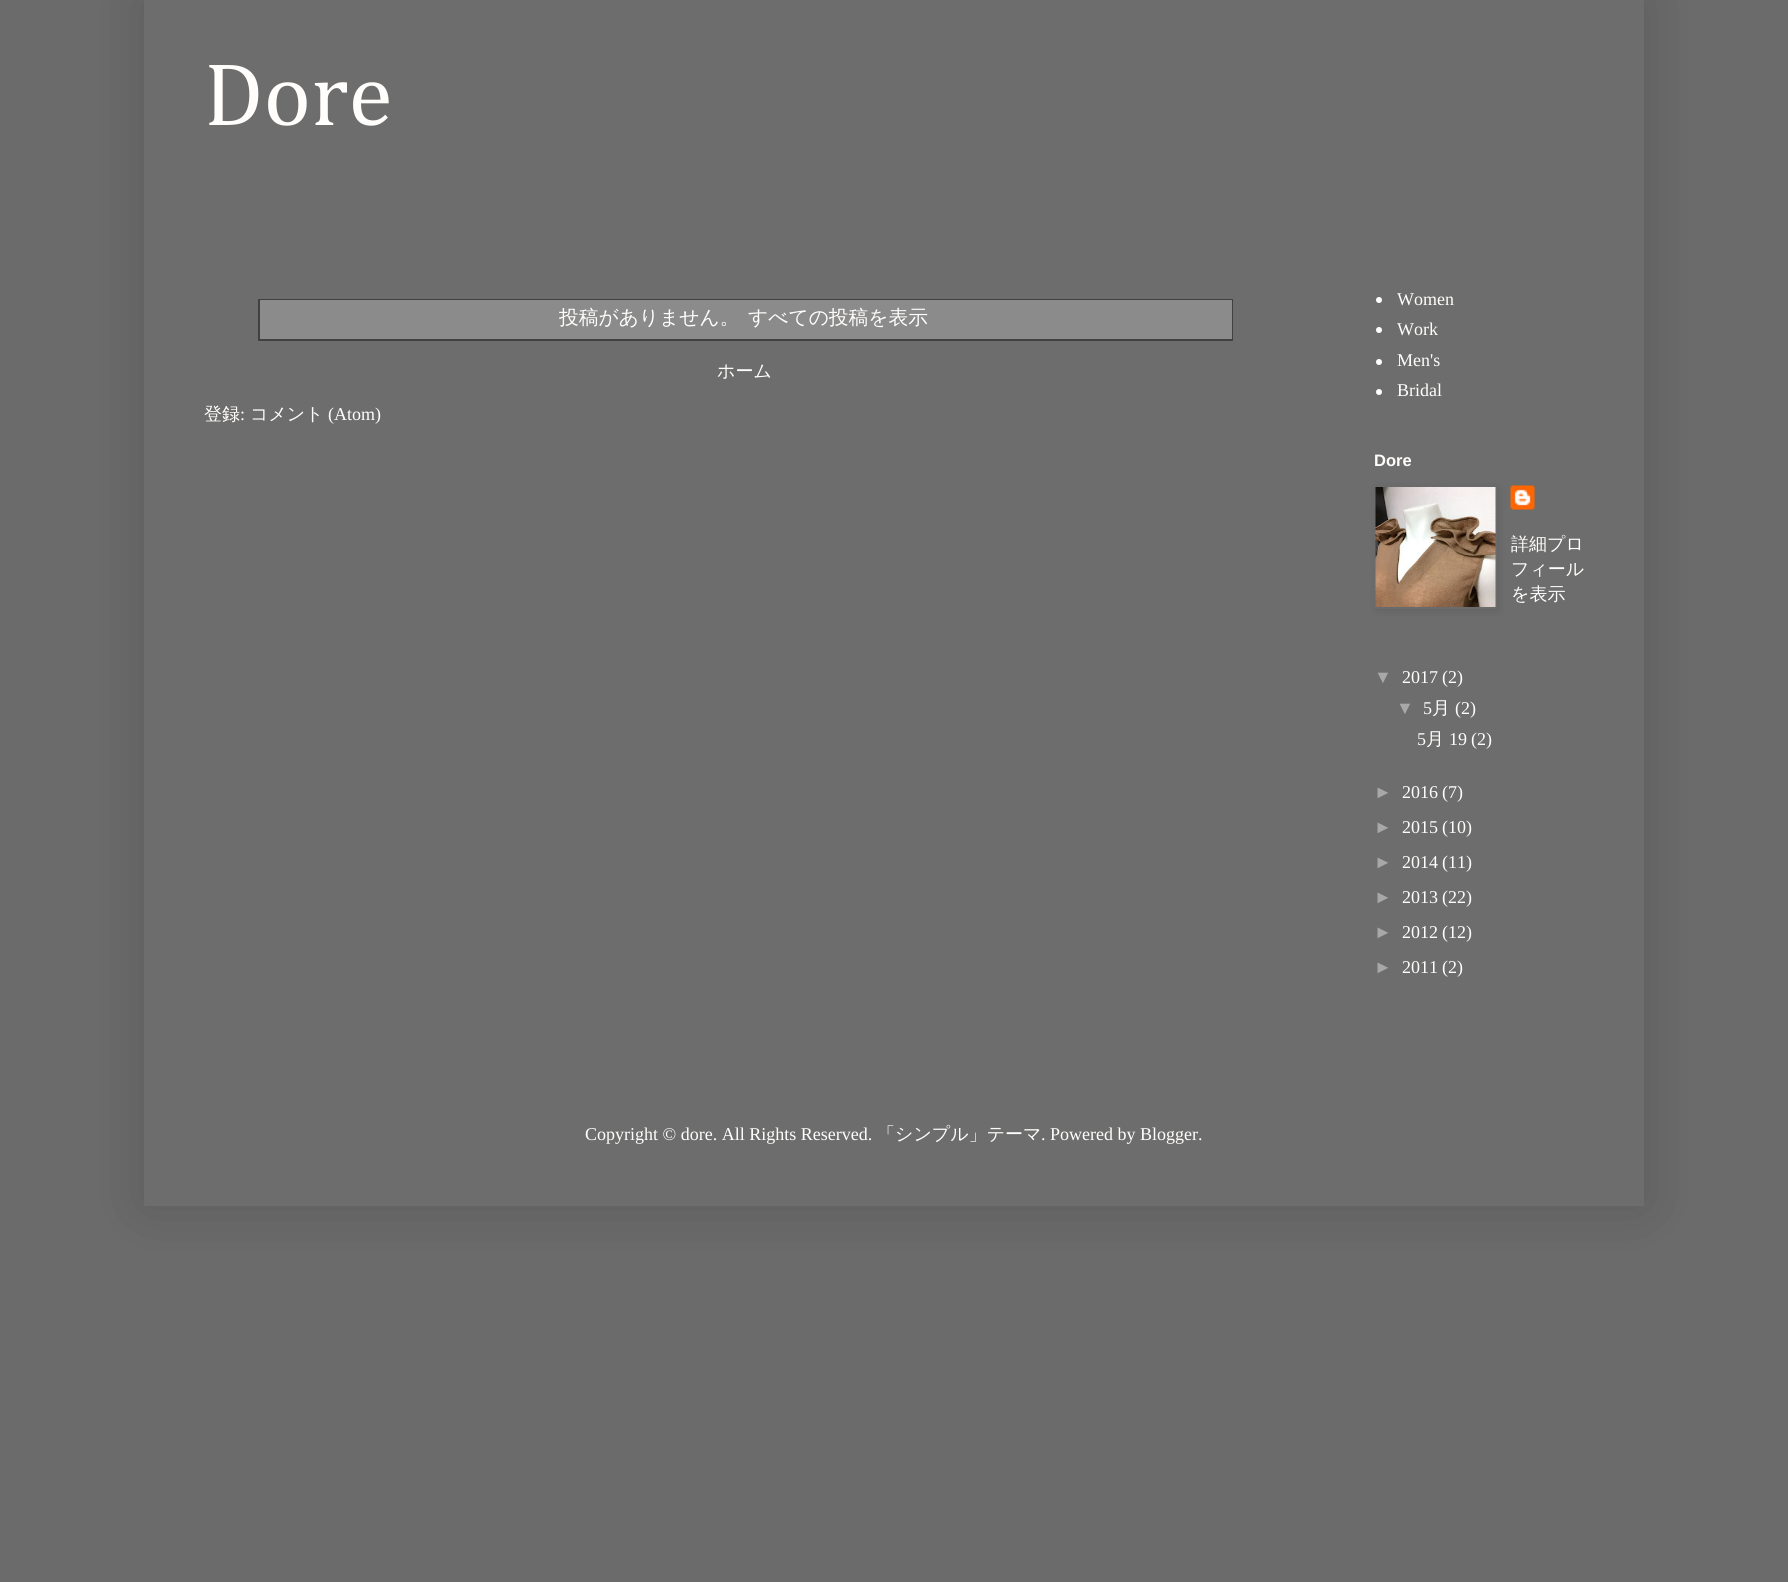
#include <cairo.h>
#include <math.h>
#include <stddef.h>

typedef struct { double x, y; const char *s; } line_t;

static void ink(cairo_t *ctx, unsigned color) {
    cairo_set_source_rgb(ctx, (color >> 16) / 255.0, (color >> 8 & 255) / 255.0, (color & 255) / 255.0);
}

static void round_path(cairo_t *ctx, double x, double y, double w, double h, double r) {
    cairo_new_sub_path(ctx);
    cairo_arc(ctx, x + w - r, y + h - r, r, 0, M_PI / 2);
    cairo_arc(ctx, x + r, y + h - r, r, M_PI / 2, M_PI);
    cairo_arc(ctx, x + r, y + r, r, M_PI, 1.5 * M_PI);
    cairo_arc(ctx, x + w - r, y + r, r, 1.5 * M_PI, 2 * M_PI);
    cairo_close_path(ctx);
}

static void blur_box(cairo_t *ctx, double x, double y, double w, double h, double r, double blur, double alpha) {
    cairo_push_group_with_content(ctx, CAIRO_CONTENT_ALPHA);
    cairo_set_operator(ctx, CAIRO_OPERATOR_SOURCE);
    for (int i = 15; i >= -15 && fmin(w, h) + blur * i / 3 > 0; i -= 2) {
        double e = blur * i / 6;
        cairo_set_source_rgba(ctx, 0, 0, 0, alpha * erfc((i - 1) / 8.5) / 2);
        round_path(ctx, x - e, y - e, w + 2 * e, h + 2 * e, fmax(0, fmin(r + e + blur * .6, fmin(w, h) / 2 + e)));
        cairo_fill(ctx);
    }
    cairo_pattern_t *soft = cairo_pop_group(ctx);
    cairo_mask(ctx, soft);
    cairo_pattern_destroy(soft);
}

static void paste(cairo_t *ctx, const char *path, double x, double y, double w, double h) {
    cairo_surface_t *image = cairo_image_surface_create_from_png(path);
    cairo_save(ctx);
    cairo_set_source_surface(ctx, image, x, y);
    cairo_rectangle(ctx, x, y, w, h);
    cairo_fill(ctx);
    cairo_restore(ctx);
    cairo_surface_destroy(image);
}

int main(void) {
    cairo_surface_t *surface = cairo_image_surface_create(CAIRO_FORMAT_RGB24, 1788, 1582);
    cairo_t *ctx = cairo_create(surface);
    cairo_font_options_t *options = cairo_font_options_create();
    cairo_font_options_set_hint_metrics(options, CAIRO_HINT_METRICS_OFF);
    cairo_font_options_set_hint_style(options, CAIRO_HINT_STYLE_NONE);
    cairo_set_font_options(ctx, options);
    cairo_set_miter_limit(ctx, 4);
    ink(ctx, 0x6B6B6B);
    cairo_paint(ctx);
    ink(ctx, 0x000000);
    blur_box(ctx, 144, -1, 1500, 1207, 0, 30, 0.15);
    ink(ctx, 0x6D6D6D);
    cairo_rectangle(ctx, 144, 0, 1500, 1206);
    cairo_fill(ctx);
    cairo_select_font_face(ctx, "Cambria", CAIRO_FONT_SLANT_NORMAL, CAIRO_FONT_WEIGHT_NORMAL);
    cairo_set_font_size(ctx, 90);
    ink(ctx, 0xFFFEFC);
    cairo_move_to(ctx, 204, 125);
    cairo_show_text(ctx, "Dore");
    cairo_rectangle(ctx, 259, 300, 973, 40);
    ink(ctx, 0x414141);
    cairo_stroke(ctx);
    ink(ctx, 0x8B8B8B);
    cairo_rectangle(ctx, 260, 300, 972, 39);
    cairo_fill(ctx);
    cairo_select_font_face(ctx, "WenQuanYi Zen Hei Medium", CAIRO_FONT_SLANT_NORMAL, CAIRO_FONT_WEIGHT_NORMAL);
    cairo_set_font_size(ctx, 19.75);
    ink(ctx, 0xFFFEFC);
    cairo_move_to(ctx, 559, 324);
    cairo_show_text(ctx, "投稿がありません。");
    cairo_move_to(ctx, 748, 324);
    cairo_show_text(ctx, "すべての投稿を表示");
    cairo_set_font_size(ctx, 18);
    cairo_move_to(ctx, 717, 377);
    cairo_show_text(ctx, "ホーム");
    cairo_move_to(ctx, 204, 420);
    cairo_show_text(ctx, "登録");
    cairo_select_font_face(ctx, "Liberation Serif", CAIRO_FONT_SLANT_NORMAL, CAIRO_FONT_WEIGHT_NORMAL);
    cairo_move_to(ctx, 240, 420);
    cairo_show_text(ctx, ":");
    cairo_select_font_face(ctx, "WenQuanYi Zen Hei Medium", CAIRO_FONT_SLANT_NORMAL, CAIRO_FONT_WEIGHT_NORMAL);
    cairo_move_to(ctx, 250, 420);
    cairo_show_text(ctx, "コメント");
    cairo_select_font_face(ctx, "Liberation Serif", CAIRO_FONT_SLANT_NORMAL, CAIRO_FONT_WEIGHT_NORMAL);
    cairo_move_to(ctx, 328, 420);
    cairo_show_text(ctx, "(Atom)");
    cairo_new_path(ctx);
    cairo_arc(ctx, 1379, 300, 3, 0, 2 * M_PI);
    cairo_fill(ctx);
    cairo_move_to(ctx, 1397, 305);
    cairo_show_text(ctx, "Women");
    cairo_new_path(ctx);
    cairo_arc(ctx, 1379, 330, 3, 0, 2 * M_PI);
    cairo_fill(ctx);
    cairo_move_to(ctx, 1397, 335);
    cairo_show_text(ctx, "Work");
    cairo_new_path(ctx);
    cairo_arc(ctx, 1379, 362, 3, 0, 2 * M_PI);
    cairo_fill(ctx);
    cairo_move_to(ctx, 1397, 366);
    cairo_show_text(ctx, "Men's");
    cairo_new_path(ctx);
    cairo_arc(ctx, 1379, 392, 3, 0, 2 * M_PI);
    cairo_fill(ctx);
    cairo_move_to(ctx, 1397, 396);
    cairo_show_text(ctx, "Bridal");
    cairo_select_font_face(ctx, "Liberation Sans", CAIRO_FONT_SLANT_NORMAL, CAIRO_FONT_WEIGHT_BOLD);
    cairo_set_font_size(ctx, 16.5);
    cairo_move_to(ctx, 1374, 466);
    cairo_show_text(ctx, "Dore");
    paste(ctx, "media/2.png", 1510, 485, 25, 25);
    ink(ctx, 0x000000);
    blur_box(ctx, 1376, 488, 123, 123, 0, 4, 0.1);
    cairo_rectangle(ctx, 1375, 487, 121, 121);
    ink(ctx, 0x6B6B6B);
    cairo_stroke(ctx);
    paste(ctx, "media/1.png", 1375, 487, 121, 120);
    cairo_select_font_face(ctx, "WenQuanYi Zen Hei Medium", CAIRO_FONT_SLANT_NORMAL, CAIRO_FONT_WEIGHT_NORMAL);
    cairo_set_font_size(ctx, 18);
    ink(ctx, 0xFFFEFC);
    {
        static const line_t items[] = {
            {1511, 550, "詳細プロ"},
            {1511, 575, "フィール"},
            {1511, 600, "を表示"},
        };
        for (size_t i = 0; i < sizeof items / sizeof *items; i++) {
            cairo_move_to(ctx, items[i].x, items[i].y);
            cairo_show_text(ctx, items[i].s);
        }
    }
    cairo_select_font_face(ctx, "Liberation Sans", CAIRO_FONT_SLANT_NORMAL, CAIRO_FONT_WEIGHT_NORMAL);
    ink(ctx, 0xA8A8A8);
    cairo_move_to(ctx, 1374, 683);
    cairo_show_text(ctx, "▼");
    cairo_select_font_face(ctx, "Liberation Serif", CAIRO_FONT_SLANT_NORMAL, CAIRO_FONT_WEIGHT_NORMAL);
    ink(ctx, 0xFFFEFC);
    cairo_move_to(ctx, 1402, 683);
    cairo_show_text(ctx, "2017");
    cairo_move_to(ctx, 1442, 683);
    cairo_show_text(ctx, "(2)");
    cairo_select_font_face(ctx, "Liberation Sans", CAIRO_FONT_SLANT_NORMAL, CAIRO_FONT_WEIGHT_NORMAL);
    ink(ctx, 0xA8A8A8);
    cairo_move_to(ctx, 1396, 714);
    cairo_show_text(ctx, "▼");
    cairo_select_font_face(ctx, "Liberation Serif", CAIRO_FONT_SLANT_NORMAL, CAIRO_FONT_WEIGHT_NORMAL);
    ink(ctx, 0xFFFEFC);
    cairo_move_to(ctx, 1423, 714);
    cairo_show_text(ctx, "5");
    cairo_select_font_face(ctx, "WenQuanYi Zen Hei Medium", CAIRO_FONT_SLANT_NORMAL, CAIRO_FONT_WEIGHT_NORMAL);
    cairo_move_to(ctx, 1432, 714);
    cairo_show_text(ctx, "月");
    cairo_select_font_face(ctx, "Liberation Serif", CAIRO_FONT_SLANT_NORMAL, CAIRO_FONT_WEIGHT_NORMAL);
    cairo_move_to(ctx, 1455, 714);
    cairo_show_text(ctx, "(2)");
    cairo_move_to(ctx, 1417, 745);
    cairo_show_text(ctx, "5");
    cairo_select_font_face(ctx, "WenQuanYi Zen Hei Medium", CAIRO_FONT_SLANT_NORMAL, CAIRO_FONT_WEIGHT_NORMAL);
    cairo_move_to(ctx, 1426, 745);
    cairo_show_text(ctx, "月");
    cairo_select_font_face(ctx, "Liberation Serif", CAIRO_FONT_SLANT_NORMAL, CAIRO_FONT_WEIGHT_NORMAL);
    cairo_move_to(ctx, 1449, 745);
    cairo_show_text(ctx, "19");
    cairo_move_to(ctx, 1471, 745);
    cairo_show_text(ctx, "(2)");
    cairo_select_font_face(ctx, "Liberation Sans", CAIRO_FONT_SLANT_NORMAL, CAIRO_FONT_WEIGHT_NORMAL);
    ink(ctx, 0xA8A8A8);
    cairo_move_to(ctx, 1374, 798);
    cairo_show_text(ctx, "►");
    cairo_select_font_face(ctx, "Liberation Serif", CAIRO_FONT_SLANT_NORMAL, CAIRO_FONT_WEIGHT_NORMAL);
    ink(ctx, 0xFFFEFC);
    cairo_move_to(ctx, 1402, 798);
    cairo_show_text(ctx, "2016");
    cairo_move_to(ctx, 1442, 798);
    cairo_show_text(ctx, "(7)");
    cairo_select_font_face(ctx, "Liberation Sans", CAIRO_FONT_SLANT_NORMAL, CAIRO_FONT_WEIGHT_NORMAL);
    ink(ctx, 0xA8A8A8);
    cairo_move_to(ctx, 1374, 833);
    cairo_show_text(ctx, "►");
    cairo_select_font_face(ctx, "Liberation Serif", CAIRO_FONT_SLANT_NORMAL, CAIRO_FONT_WEIGHT_NORMAL);
    ink(ctx, 0xFFFEFC);
    cairo_move_to(ctx, 1402, 833);
    cairo_show_text(ctx, "2015");
    cairo_move_to(ctx, 1442, 833);
    cairo_show_text(ctx, "(10)");
    cairo_select_font_face(ctx, "Liberation Sans", CAIRO_FONT_SLANT_NORMAL, CAIRO_FONT_WEIGHT_NORMAL);
    ink(ctx, 0xA8A8A8);
    cairo_move_to(ctx, 1374, 868);
    cairo_show_text(ctx, "►");
    cairo_select_font_face(ctx, "Liberation Serif", CAIRO_FONT_SLANT_NORMAL, CAIRO_FONT_WEIGHT_NORMAL);
    ink(ctx, 0xFFFEFC);
    cairo_move_to(ctx, 1402, 868);
    cairo_show_text(ctx, "2014");
    cairo_move_to(ctx, 1442, 868);
    cairo_show_text(ctx, "(11)");
    cairo_select_font_face(ctx, "Liberation Sans", CAIRO_FONT_SLANT_NORMAL, CAIRO_FONT_WEIGHT_NORMAL);
    ink(ctx, 0xA8A8A8);
    cairo_move_to(ctx, 1374, 903);
    cairo_show_text(ctx, "►");
    cairo_select_font_face(ctx, "Liberation Serif", CAIRO_FONT_SLANT_NORMAL, CAIRO_FONT_WEIGHT_NORMAL);
    ink(ctx, 0xFFFEFC);
    cairo_move_to(ctx, 1402, 903);
    cairo_show_text(ctx, "2013");
    cairo_move_to(ctx, 1442, 903);
    cairo_show_text(ctx, "(22)");
    cairo_select_font_face(ctx, "Liberation Sans", CAIRO_FONT_SLANT_NORMAL, CAIRO_FONT_WEIGHT_NORMAL);
    ink(ctx, 0xA8A8A8);
    cairo_move_to(ctx, 1374, 938);
    cairo_show_text(ctx, "►");
    cairo_select_font_face(ctx, "Liberation Serif", CAIRO_FONT_SLANT_NORMAL, CAIRO_FONT_WEIGHT_NORMAL);
    ink(ctx, 0xFFFEFC);
    cairo_move_to(ctx, 1402, 938);
    cairo_show_text(ctx, "2012");
    cairo_move_to(ctx, 1442, 938);
    cairo_show_text(ctx, "(12)");
    cairo_select_font_face(ctx, "Liberation Sans", CAIRO_FONT_SLANT_NORMAL, CAIRO_FONT_WEIGHT_NORMAL);
    ink(ctx, 0xA8A8A8);
    cairo_move_to(ctx, 1374, 973);
    cairo_show_text(ctx, "►");
    cairo_select_font_face(ctx, "Liberation Serif", CAIRO_FONT_SLANT_NORMAL, CAIRO_FONT_WEIGHT_NORMAL);
    ink(ctx, 0xFFFEFC);
    {
        static const line_t items[] = {
            {1402, 973, "2011"},
            {1442, 973, "(2)"},
            {585, 1140, "Copyright © dore. All Rights Reserved."},
        };
        for (size_t i = 0; i < sizeof items / sizeof *items; i++) {
            cairo_move_to(ctx, items[i].x, items[i].y);
            cairo_show_text(ctx, items[i].s);
        }
    }
    cairo_select_font_face(ctx, "WenQuanYi Zen Hei Medium", CAIRO_FONT_SLANT_NORMAL, CAIRO_FONT_WEIGHT_NORMAL);
    cairo_move_to(ctx, 877, 1140);
    cairo_show_text(ctx, "「シンプル」テーマ");
    cairo_select_font_face(ctx, "Liberation Serif", CAIRO_FONT_SLANT_NORMAL, CAIRO_FONT_WEIGHT_NORMAL);
    {
        static const line_t items[] = {
            {1041, 1140, ". Powered by"},
            {1140, 1140, "Blogger"},
            {1198, 1140, "."},
        };
        for (size_t i = 0; i < sizeof items / sizeof *items; i++) {
            cairo_move_to(ctx, items[i].x, items[i].y);
            cairo_show_text(ctx, items[i].s);
        }
    }
    cairo_surface_write_to_png(surface, "image.png");
    cairo_font_options_destroy(options);
    cairo_destroy(ctx);
    cairo_surface_destroy(surface);
    return 0;
}
